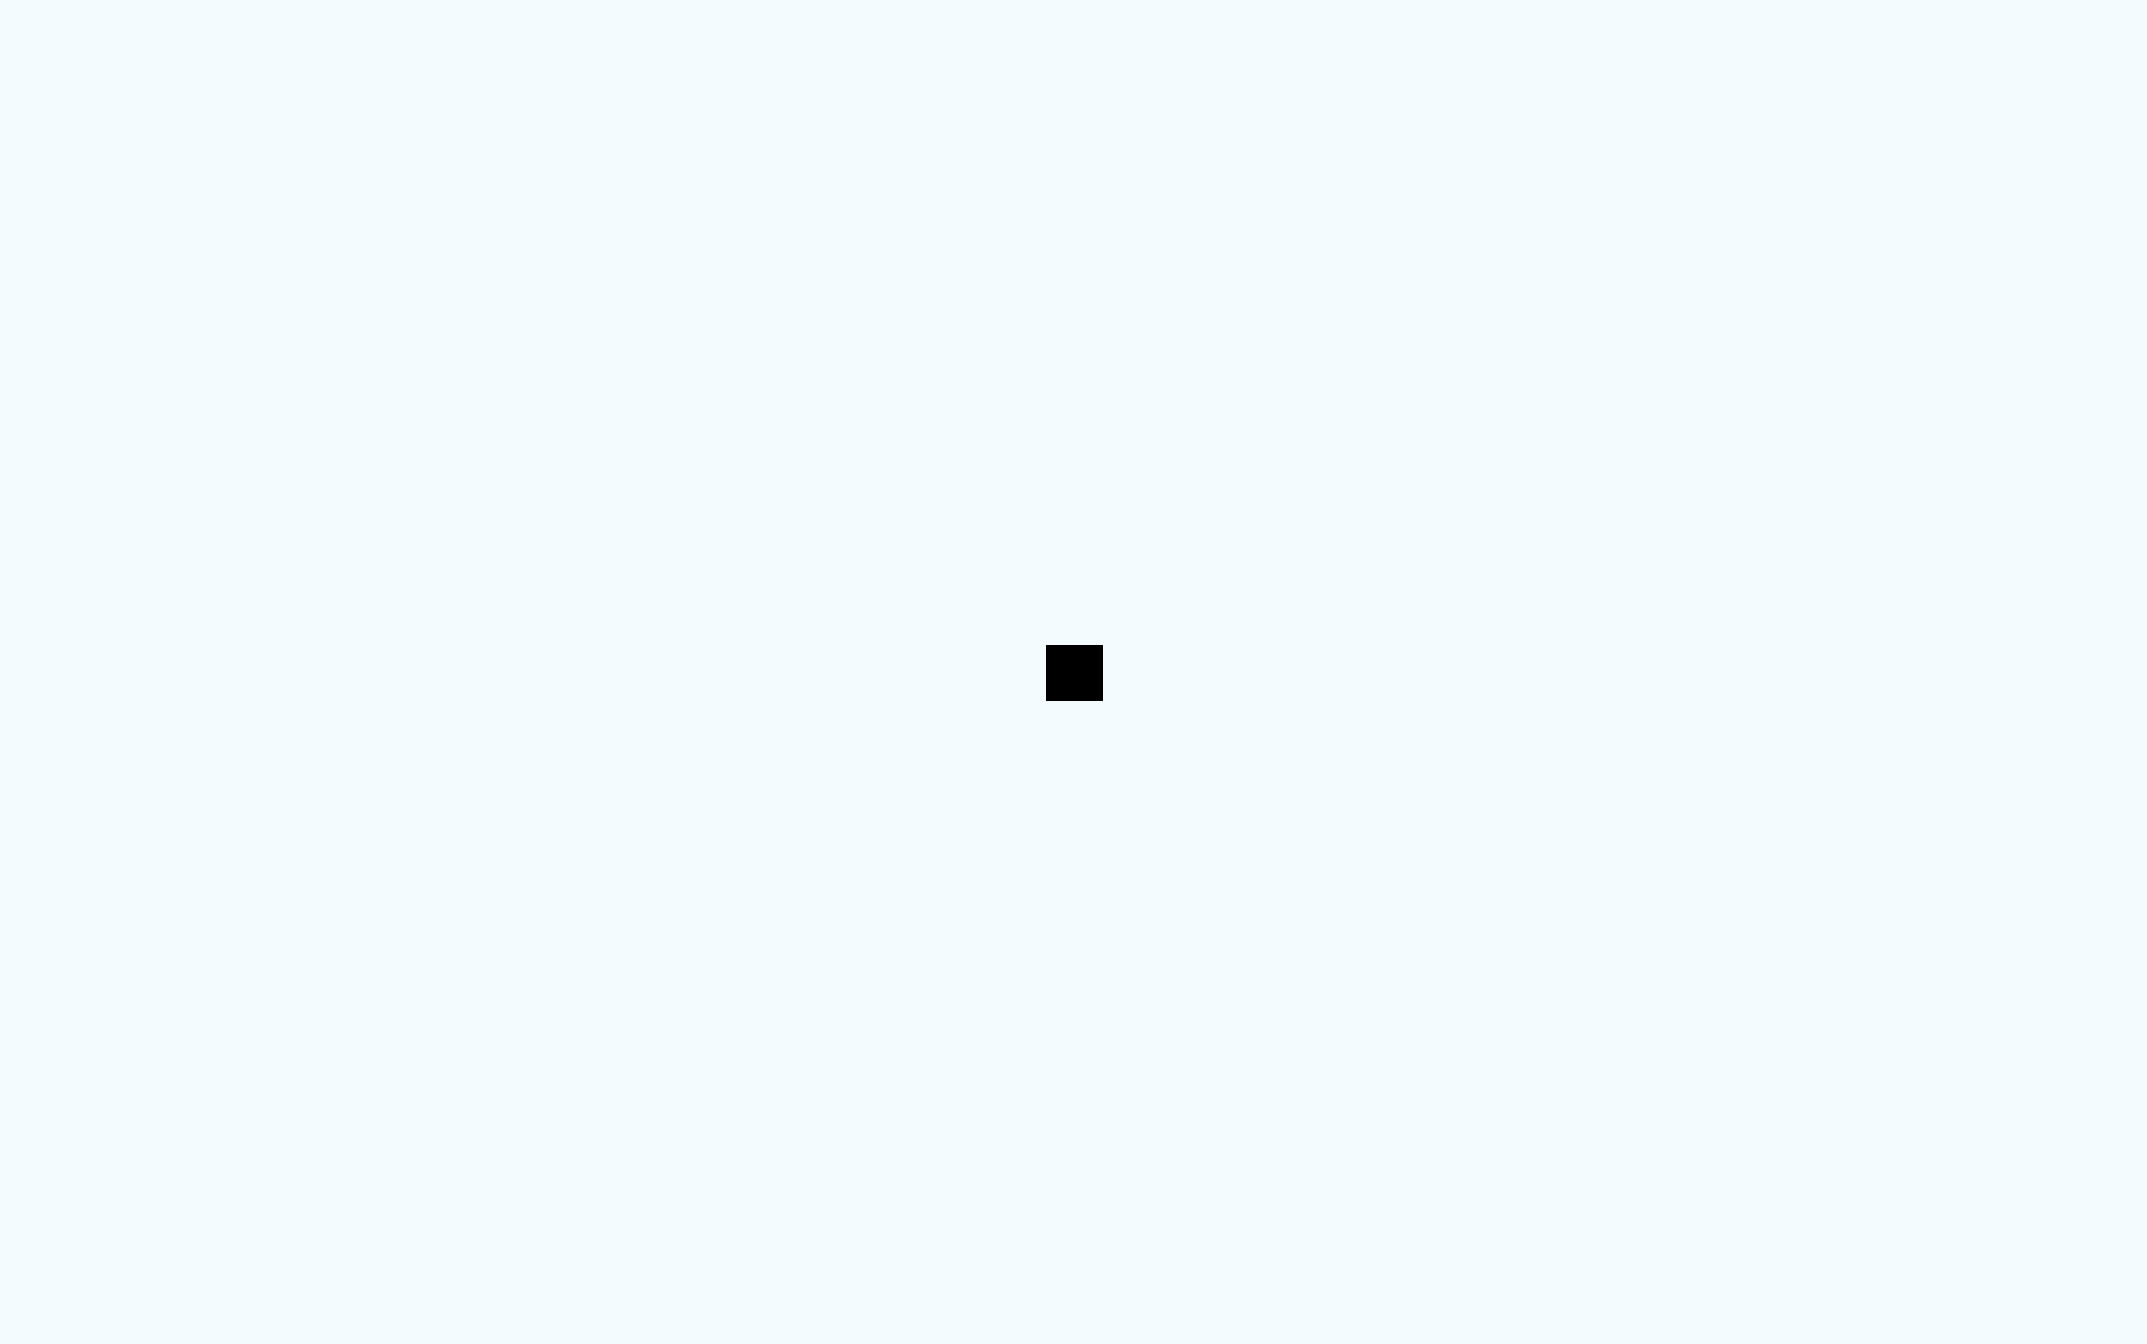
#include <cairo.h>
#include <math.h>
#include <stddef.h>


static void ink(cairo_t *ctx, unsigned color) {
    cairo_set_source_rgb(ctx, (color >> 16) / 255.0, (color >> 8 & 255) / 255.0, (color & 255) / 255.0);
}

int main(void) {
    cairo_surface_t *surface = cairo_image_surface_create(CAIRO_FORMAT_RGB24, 2147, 1344);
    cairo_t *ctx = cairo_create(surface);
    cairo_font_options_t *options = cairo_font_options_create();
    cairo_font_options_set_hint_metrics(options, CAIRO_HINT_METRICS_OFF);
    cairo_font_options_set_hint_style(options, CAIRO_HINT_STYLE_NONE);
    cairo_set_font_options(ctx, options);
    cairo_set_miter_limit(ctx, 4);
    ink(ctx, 0xF4FBFF);
    cairo_paint(ctx);
    ink(ctx, 0x000000);
    cairo_rectangle(ctx, 1046, 645, 57, 56);
    cairo_fill(ctx);
    cairo_surface_write_to_png(surface, "image.png");
    cairo_font_options_destroy(options);
    cairo_destroy(ctx);
    cairo_surface_destroy(surface);
    return 0;
}
